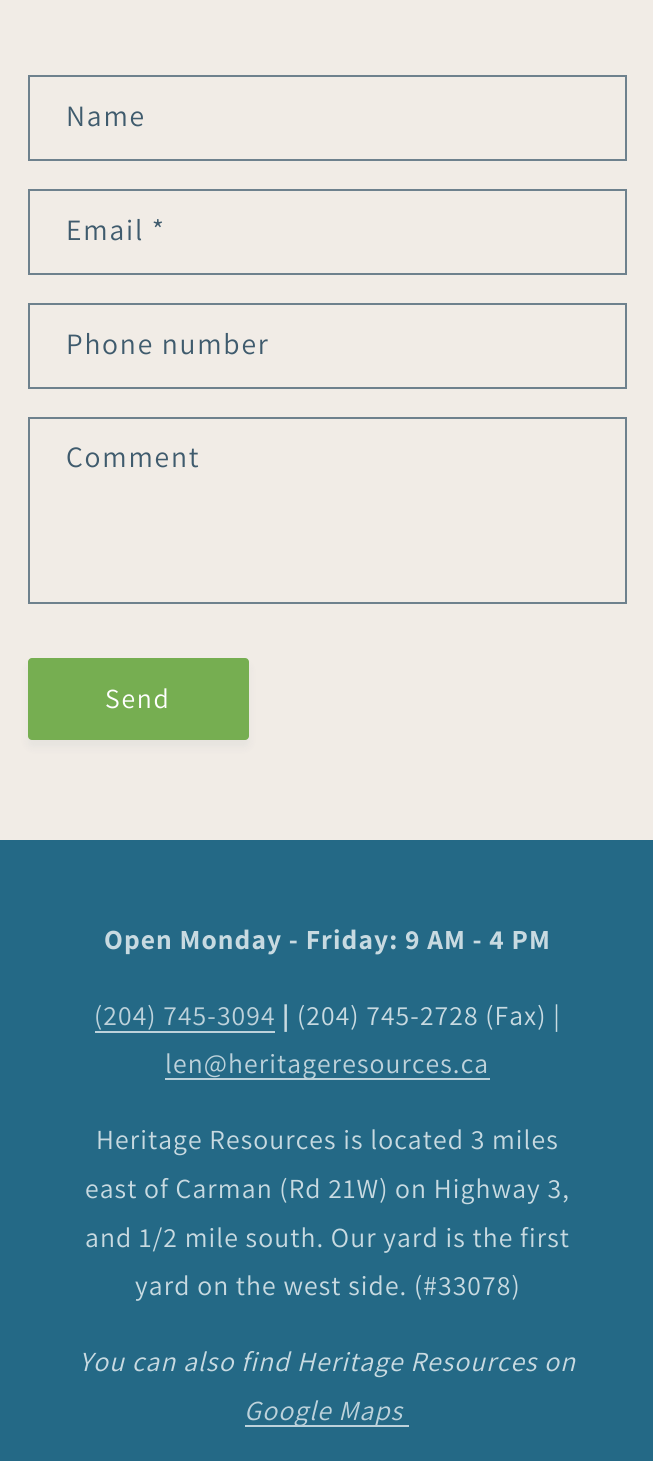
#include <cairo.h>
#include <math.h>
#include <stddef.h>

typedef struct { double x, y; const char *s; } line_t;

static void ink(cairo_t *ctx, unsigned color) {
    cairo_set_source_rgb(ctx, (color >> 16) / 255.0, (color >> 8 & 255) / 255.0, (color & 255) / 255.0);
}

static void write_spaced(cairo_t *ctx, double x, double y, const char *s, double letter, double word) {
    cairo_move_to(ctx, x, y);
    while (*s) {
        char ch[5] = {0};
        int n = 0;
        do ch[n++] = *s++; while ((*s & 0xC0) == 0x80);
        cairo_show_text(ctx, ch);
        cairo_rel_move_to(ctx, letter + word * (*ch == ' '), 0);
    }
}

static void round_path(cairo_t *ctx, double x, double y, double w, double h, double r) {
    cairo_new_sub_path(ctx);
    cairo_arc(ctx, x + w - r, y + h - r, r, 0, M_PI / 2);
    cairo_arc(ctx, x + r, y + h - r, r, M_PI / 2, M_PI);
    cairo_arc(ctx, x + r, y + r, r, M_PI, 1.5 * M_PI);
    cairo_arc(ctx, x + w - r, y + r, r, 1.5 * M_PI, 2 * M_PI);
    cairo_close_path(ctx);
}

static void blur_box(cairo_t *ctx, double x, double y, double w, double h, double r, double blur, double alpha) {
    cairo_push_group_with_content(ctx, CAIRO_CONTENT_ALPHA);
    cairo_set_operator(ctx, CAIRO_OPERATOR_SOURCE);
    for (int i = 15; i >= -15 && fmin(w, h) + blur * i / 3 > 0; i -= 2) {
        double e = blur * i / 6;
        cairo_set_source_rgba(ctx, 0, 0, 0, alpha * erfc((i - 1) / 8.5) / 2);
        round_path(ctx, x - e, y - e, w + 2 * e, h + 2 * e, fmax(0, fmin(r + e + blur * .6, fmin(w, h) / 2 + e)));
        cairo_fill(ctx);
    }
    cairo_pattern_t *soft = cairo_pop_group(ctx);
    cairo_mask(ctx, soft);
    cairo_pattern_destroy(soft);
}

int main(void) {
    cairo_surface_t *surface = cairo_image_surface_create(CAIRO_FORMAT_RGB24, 653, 1461);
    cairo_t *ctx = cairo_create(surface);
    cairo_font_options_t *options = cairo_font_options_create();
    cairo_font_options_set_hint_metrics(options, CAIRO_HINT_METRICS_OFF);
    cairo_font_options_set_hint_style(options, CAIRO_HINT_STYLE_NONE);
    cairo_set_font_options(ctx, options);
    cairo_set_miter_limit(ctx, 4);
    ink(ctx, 0xF1ECE6);
    cairo_paint(ctx);
    cairo_rectangle(ctx, 29, 76, 597, 84);
    ink(ctx, 0x6E818D);
    cairo_stroke(ctx);
    cairo_select_font_face(ctx, "Assistant", CAIRO_FONT_SLANT_NORMAL, CAIRO_FONT_WEIGHT_NORMAL);
    cairo_set_font_size(ctx, 29.5);
    ink(ctx, 0x3F5B6D);
    write_spaced(ctx, 66, 126, "Name", 1.8, 0);
    cairo_rectangle(ctx, 29, 190, 597, 84);
    ink(ctx, 0x6E818D);
    cairo_stroke(ctx);
    ink(ctx, 0x3F5B6D);
    write_spaced(ctx, 66, 240, "Email *", 1.8, 0);
    cairo_rectangle(ctx, 29, 304, 597, 84);
    ink(ctx, 0x6E818D);
    cairo_stroke(ctx);
    ink(ctx, 0x3F5B6D);
    write_spaced(ctx, 66, 354, "Phone number", 1.8, 0);
    cairo_rectangle(ctx, 29, 418, 597, 185);
    ink(ctx, 0x6E818D);
    cairo_stroke(ctx);
    ink(ctx, 0x3F5B6D);
    write_spaced(ctx, 66, 467, "Comment", 1.8, 0);
    ink(ctx, 0x032A45);
    blur_box(ctx, 28, 665, 221, 82, 4, 4.5, 0.05);
    ink(ctx, 0x76AE51);
    round_path(ctx, 28, 658, 221, 82, 4);
    cairo_fill(ctx);
    cairo_set_font_size(ctx, 27.6);
    ink(ctx, 0xFFFFFF);
    write_spaced(ctx, 105, 708, "Send", 1.8, 0);
    ink(ctx, 0x246986);
    cairo_rectangle(ctx, 0, 840, 653, 621);
    cairo_fill(ctx);
    cairo_select_font_face(ctx, "Assistant", CAIRO_FONT_SLANT_NORMAL, CAIRO_FONT_WEIGHT_BOLD);
    ink(ctx, 0xC8DAE1);
    write_spaced(ctx, 104, 949, "Open Monday - Friday: 9 AM - 4 PM", 1.1, 0);
    cairo_select_font_face(ctx, "Assistant", CAIRO_FONT_SLANT_NORMAL, CAIRO_FONT_WEIGHT_NORMAL);
    ink(ctx, 0xBDD2DB);
    write_spaced(ctx, 94, 1025, "(204) 745-3094", 1.1, 0);
    cairo_rectangle(ctx, 95, 1031, 180, 2);
    cairo_fill(ctx);
    cairo_select_font_face(ctx, "Assistant", CAIRO_FONT_SLANT_NORMAL, CAIRO_FONT_WEIGHT_BOLD);
    ink(ctx, 0xC8DAE1);
    write_spaced(ctx, 282, 1025, "|", 1.1, 0);
    cairo_select_font_face(ctx, "Assistant", CAIRO_FONT_SLANT_NORMAL, CAIRO_FONT_WEIGHT_NORMAL);
    write_spaced(ctx, 297, 1025, "(204) 745-2728 (Fax) |", 1.1, 0);
    ink(ctx, 0xBDD2DB);
    cairo_rectangle(ctx, 165, 1078, 325, 2);
    cairo_fill(ctx);
    write_spaced(ctx, 165, 1073, "len@heritageresources.ca", 1.1, 0);
    ink(ctx, 0xC8DAE1);
    {
        static const line_t items[] = {
            {96, 1149, "Heritage Resources is located 3 miles"},
            {85, 1198, "east of Carman (Rd 21W) on Highway 3,"},
            {85, 1247, "and 1/2 mile south. Our yard is the first"},
            {135, 1295, "yard on the west side. (#33078)"},
        };
        for (size_t i = 0; i < sizeof items / sizeof *items; i++) {
            write_spaced(ctx, items[i].x, items[i].y, items[i].s, 1.1, 0);
        }
    }
    cairo_select_font_face(ctx, "Assistant", CAIRO_FONT_SLANT_ITALIC, CAIRO_FONT_WEIGHT_NORMAL);
    write_spaced(ctx, 79, 1371, "You can also find Heritage Resources on", 1.1, 0);
    ink(ctx, 0xBDD2DB);
    cairo_rectangle(ctx, 245, 1425, 164, 2);
    cairo_fill(ctx);
    write_spaced(ctx, 244, 1420, "Google Maps", 1.1, 0);
    cairo_surface_write_to_png(surface, "image.png");
    cairo_font_options_destroy(options);
    cairo_destroy(ctx);
    cairo_surface_destroy(surface);
    return 0;
}
